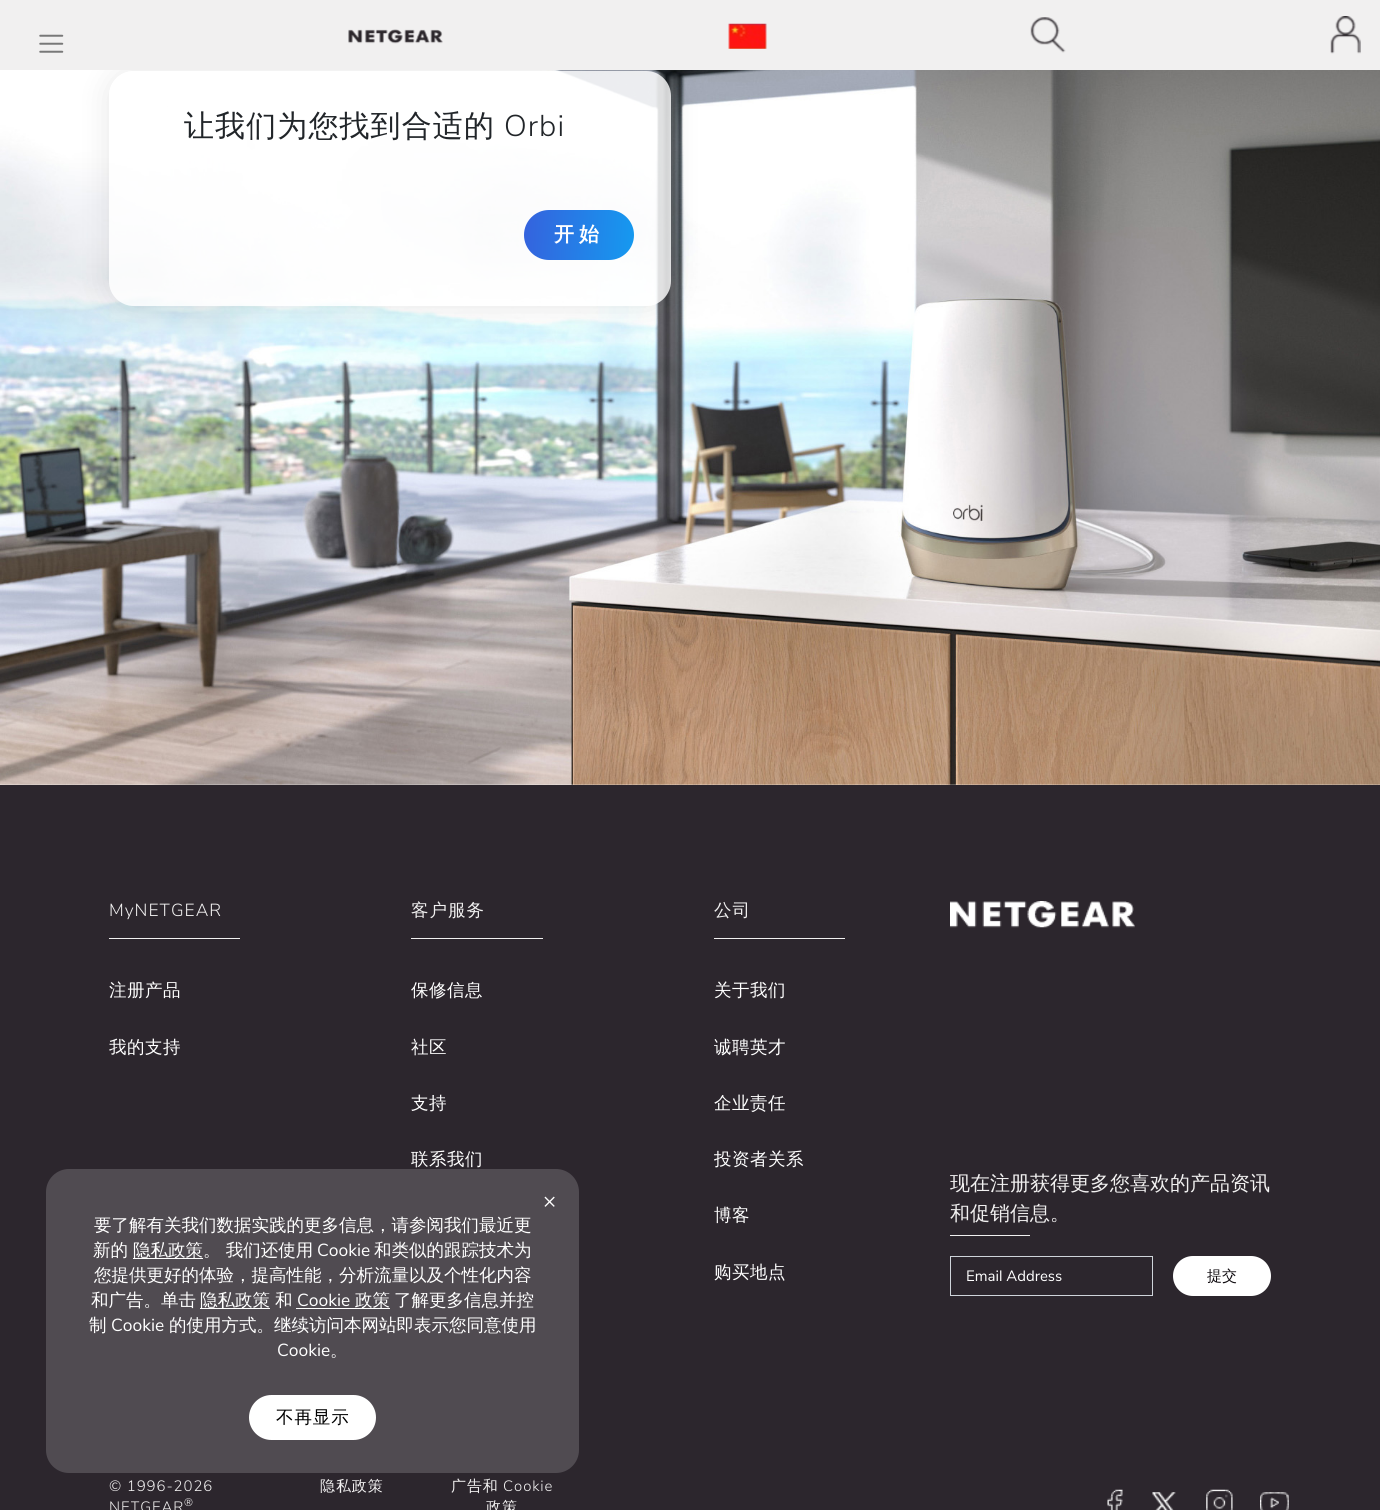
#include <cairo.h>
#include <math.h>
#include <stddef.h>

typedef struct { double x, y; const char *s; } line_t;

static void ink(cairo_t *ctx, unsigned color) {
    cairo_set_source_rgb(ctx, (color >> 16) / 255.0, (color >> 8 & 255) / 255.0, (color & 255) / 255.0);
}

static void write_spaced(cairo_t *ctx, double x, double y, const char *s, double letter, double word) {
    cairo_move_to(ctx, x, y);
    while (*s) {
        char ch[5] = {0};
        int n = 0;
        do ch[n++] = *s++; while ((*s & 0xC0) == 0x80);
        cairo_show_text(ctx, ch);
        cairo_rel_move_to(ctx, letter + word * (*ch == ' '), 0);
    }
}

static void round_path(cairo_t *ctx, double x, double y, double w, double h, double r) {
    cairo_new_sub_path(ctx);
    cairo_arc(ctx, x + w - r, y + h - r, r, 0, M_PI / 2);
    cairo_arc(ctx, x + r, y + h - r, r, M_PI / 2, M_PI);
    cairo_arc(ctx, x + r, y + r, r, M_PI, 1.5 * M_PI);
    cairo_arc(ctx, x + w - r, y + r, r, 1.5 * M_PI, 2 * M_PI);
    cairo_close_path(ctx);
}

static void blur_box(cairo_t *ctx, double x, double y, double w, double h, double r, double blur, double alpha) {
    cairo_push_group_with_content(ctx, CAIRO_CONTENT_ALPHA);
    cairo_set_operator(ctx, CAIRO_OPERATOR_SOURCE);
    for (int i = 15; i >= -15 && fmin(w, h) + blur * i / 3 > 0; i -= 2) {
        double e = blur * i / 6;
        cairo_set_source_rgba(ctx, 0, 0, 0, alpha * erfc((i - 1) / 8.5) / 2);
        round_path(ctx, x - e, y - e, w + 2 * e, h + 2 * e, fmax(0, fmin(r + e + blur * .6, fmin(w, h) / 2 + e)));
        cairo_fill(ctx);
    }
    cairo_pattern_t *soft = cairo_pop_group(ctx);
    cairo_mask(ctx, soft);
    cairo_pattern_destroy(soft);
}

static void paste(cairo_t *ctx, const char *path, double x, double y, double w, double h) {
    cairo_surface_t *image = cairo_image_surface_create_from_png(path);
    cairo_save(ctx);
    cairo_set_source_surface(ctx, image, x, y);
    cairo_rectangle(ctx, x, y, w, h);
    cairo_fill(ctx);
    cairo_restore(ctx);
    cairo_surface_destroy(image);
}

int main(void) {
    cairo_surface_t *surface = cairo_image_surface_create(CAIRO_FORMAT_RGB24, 1380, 1510);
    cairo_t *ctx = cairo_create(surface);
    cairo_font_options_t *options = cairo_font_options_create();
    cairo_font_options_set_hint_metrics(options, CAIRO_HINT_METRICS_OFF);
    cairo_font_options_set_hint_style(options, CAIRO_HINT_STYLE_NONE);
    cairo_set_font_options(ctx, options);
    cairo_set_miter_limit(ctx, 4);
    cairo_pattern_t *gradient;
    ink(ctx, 0xFFFFFF);
    cairo_paint(ctx);
    paste(ctx, "media/6.png", 0, 70, 1380, 715);
    cairo_save(ctx);
    cairo_set_fill_rule(ctx, CAIRO_FILL_RULE_EVEN_ODD);
    cairo_new_path(ctx);
    cairo_move_to(ctx, 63, 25);
    cairo_line_to(ctx, 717, 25);
    cairo_line_to(ctx, 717, 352);
    cairo_line_to(ctx, 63, 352);
    cairo_close_path(ctx);
    cairo_move_to(ctx, 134, 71);
    cairo_line_to(ctx, 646, 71);
    cairo_curve_to(ctx, 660, 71, 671, 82, 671, 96);
    cairo_line_to(ctx, 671, 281);
    cairo_curve_to(ctx, 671, 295, 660, 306, 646, 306);
    cairo_line_to(ctx, 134, 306);
    cairo_curve_to(ctx, 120, 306, 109, 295, 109, 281);
    cairo_line_to(ctx, 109, 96);
    cairo_curve_to(ctx, 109, 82, 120, 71, 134, 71);
    cairo_close_path(ctx);
    cairo_clip(ctx);
    ink(ctx, 0x000000);
    blur_box(ctx, 109, 71, 562, 235, 25, 15, 0.1);
    cairo_restore(ctx);
    ink(ctx, 0xF1F0F0);
    cairo_rectangle(ctx, 0, 0, 1380, 70);
    cairo_fill(ctx);
    paste(ctx, "media/1.png", 39, 34, 25, 19);
    paste(ctx, "media/2.png", 348, 29, 95, 15);
    paste(ctx, "media/3.png", 728, 23, 39, 26);
    paste(ctx, "media/4.png", 1030, 17, 36, 36);
    paste(ctx, "media/5.png", 1330, 16, 31, 38);
    cairo_set_source_rgba(ctx, 1, 1, 1, 0.8);
    round_path(ctx, 109, 71, 562, 235, 25);
    cairo_fill(ctx);
    cairo_select_font_face(ctx, "WenQuanYi Zen Hei Medium", CAIRO_FONT_SLANT_NORMAL, CAIRO_FONT_WEIGHT_NORMAL);
    cairo_set_font_size(ctx, 30);
    ink(ctx, 0x212529);
    write_spaced(ctx, 184, 136, "让我们为您找到合适的", 1.1, 0);
    cairo_select_font_face(ctx, "Nunito Sans Light", CAIRO_FONT_SLANT_NORMAL, CAIRO_FONT_WEIGHT_NORMAL);
    write_spaced(ctx, 504, 136, "Orbi", 1.1, 0);
    gradient = cairo_pattern_create_linear(522, 230, 636, 240);
    cairo_pattern_add_color_stop_rgba(gradient, 0, 0.208, 0.384, 0.867, 1);
    cairo_pattern_add_color_stop_rgba(gradient, 1, 0.082, 0.604, 0.941, 1);
    cairo_set_source(ctx, gradient);
    cairo_pattern_destroy(gradient);
    round_path(ctx, 524, 210, 110, 50, 25);
    cairo_fill(ctx);
    cairo_select_font_face(ctx, "WenQuanYi Zen Hei", CAIRO_FONT_SLANT_NORMAL, CAIRO_FONT_WEIGHT_BOLD);
    cairo_set_font_size(ctx, 20);
    ink(ctx, 0xFFFFFF);
    write_spaced(ctx, 554, 241, "开始", 5, 0);
    ink(ctx, 0x2C262D);
    cairo_rectangle(ctx, 0, 785, 1380, 725);
    cairo_fill(ctx);
    cairo_select_font_face(ctx, "Nunito Sans Light", CAIRO_FONT_SLANT_NORMAL, CAIRO_FONT_WEIGHT_NORMAL);
    cairo_set_font_size(ctx, 17.5);
    ink(ctx, 0xF1F0F0);
    write_spaced(ctx, 109, 916, "MyNETGEAR", 1, 0);
    cairo_rectangle(ctx, 109, 938, 131, 1);
    cairo_fill(ctx);
    cairo_select_font_face(ctx, "WenQuanYi Zen Hei Medium", CAIRO_FONT_SLANT_NORMAL, CAIRO_FONT_WEIGHT_NORMAL);
    ink(ctx, 0xFFFFFF);
    write_spaced(ctx, 109, 996, "注册产品", 0.5, 0);
    write_spaced(ctx, 109, 1053, "我的支持", 0.5, 0);
    ink(ctx, 0xF1F0F0);
    write_spaced(ctx, 411, 916, "客户服务", 1, 0);
    cairo_rectangle(ctx, 411, 938, 132, 1);
    cairo_fill(ctx);
    ink(ctx, 0xFFFFFF);
    {
        static const line_t items[] = {
            {411, 996, "保修信息"},
            {411, 1053, "社区"},
            {411, 1109, "支持"},
            {411, 1165, "联系我们"},
        };
        for (size_t i = 0; i < sizeof items / sizeof *items; i++) {
            write_spaced(ctx, items[i].x, items[i].y, items[i].s, 0.5, 0);
        }
    }
    ink(ctx, 0xF1F0F0);
    write_spaced(ctx, 714, 916, "公司", 1, 0);
    cairo_rectangle(ctx, 714, 938, 131, 1);
    cairo_fill(ctx);
    ink(ctx, 0xFFFFFF);
    {
        static const line_t items[] = {
            {714, 996, "关于我们"},
            {714, 1053, "诚聘英才"},
            {714, 1109, "企业责任"},
            {714, 1165, "投资者关系"},
            {714, 1221, "博客"},
            {714, 1278, "购买地点"},
        };
        for (size_t i = 0; i < sizeof items / sizeof *items; i++) {
            write_spaced(ctx, items[i].x, items[i].y, items[i].s, 0.5, 0);
        }
    }
    ink(ctx, 0x504B51);
    round_path(ctx, 46, 1169, 533, 304, 23);
    cairo_fill(ctx);
    cairo_select_font_face(ctx, "Nunito Sans", CAIRO_FONT_SLANT_NORMAL, CAIRO_FONT_WEIGHT_NORMAL);
    cairo_set_font_size(ctx, 22);
    ink(ctx, 0xFFFFFF);
    cairo_move_to(ctx, 543, 1208);
    cairo_show_text(ctx, "×");
    cairo_select_font_face(ctx, "WenQuanYi Zen Hei Medium", CAIRO_FONT_SLANT_NORMAL, CAIRO_FONT_WEIGHT_NORMAL);
    cairo_set_font_size(ctx, 17.5);
    cairo_move_to(ctx, 94, 1231);
    cairo_show_text(ctx, "要了解有关我们数据实践的更多信息，请参阅我们最近更");
    cairo_move_to(ctx, 93, 1256);
    cairo_show_text(ctx, "新的");
    cairo_rectangle(ctx, 133, 1258, 70, 1);
    cairo_fill(ctx);
    cairo_move_to(ctx, 133, 1256);
    cairo_show_text(ctx, "隐私政策");
    cairo_move_to(ctx, 203, 1256);
    cairo_show_text(ctx, "。 我们还使用");
    cairo_select_font_face(ctx, "Nunito Sans", CAIRO_FONT_SLANT_NORMAL, CAIRO_FONT_WEIGHT_NORMAL);
    cairo_move_to(ctx, 317, 1256);
    cairo_show_text(ctx, "Cookie");
    cairo_select_font_face(ctx, "WenQuanYi Zen Hei Medium", CAIRO_FONT_SLANT_NORMAL, CAIRO_FONT_WEIGHT_NORMAL);
    {
        static const line_t items[] = {
            {374, 1256, "和类似的跟踪技术为"},
            {94, 1281, "您提供更好的体验，提高性能，分析流量以及个性化内容"},
            {91, 1306, "和广告。单击"},
        };
        for (size_t i = 0; i < sizeof items / sizeof *items; i++) {
            cairo_move_to(ctx, items[i].x, items[i].y);
            cairo_show_text(ctx, items[i].s);
        }
    }
    cairo_rectangle(ctx, 200, 1308, 70, 1);
    cairo_fill(ctx);
    cairo_move_to(ctx, 200, 1306);
    cairo_show_text(ctx, "隐私政策");
    cairo_move_to(ctx, 275, 1306);
    cairo_show_text(ctx, "和");
    cairo_select_font_face(ctx, "Nunito Sans", CAIRO_FONT_SLANT_NORMAL, CAIRO_FONT_WEIGHT_NORMAL);
    cairo_move_to(ctx, 297, 1306);
    cairo_show_text(ctx, "Cookie");
    cairo_rectangle(ctx, 296, 1308, 94, 1);
    cairo_fill(ctx);
    cairo_select_font_face(ctx, "WenQuanYi Zen Hei Medium", CAIRO_FONT_SLANT_NORMAL, CAIRO_FONT_WEIGHT_NORMAL);
    {
        static const line_t items[] = {
            {355, 1306, "政策"},
            {394, 1306, "了解更多信息并控"},
            {89, 1331, "制"},
        };
        for (size_t i = 0; i < sizeof items / sizeof *items; i++) {
            cairo_move_to(ctx, items[i].x, items[i].y);
            cairo_show_text(ctx, items[i].s);
        }
    }
    cairo_select_font_face(ctx, "Nunito Sans", CAIRO_FONT_SLANT_NORMAL, CAIRO_FONT_WEIGHT_NORMAL);
    cairo_move_to(ctx, 111, 1331);
    cairo_show_text(ctx, "Cookie");
    cairo_select_font_face(ctx, "WenQuanYi Zen Hei Medium", CAIRO_FONT_SLANT_NORMAL, CAIRO_FONT_WEIGHT_NORMAL);
    cairo_move_to(ctx, 169, 1331);
    cairo_show_text(ctx, "的使用方式。继续访问本网站即表示您同意使用");
    cairo_select_font_face(ctx, "Nunito Sans", CAIRO_FONT_SLANT_NORMAL, CAIRO_FONT_WEIGHT_NORMAL);
    cairo_move_to(ctx, 277, 1356);
    cairo_show_text(ctx, "Cookie");
    cairo_select_font_face(ctx, "WenQuanYi Zen Hei Medium", CAIRO_FONT_SLANT_NORMAL, CAIRO_FONT_WEIGHT_NORMAL);
    cairo_move_to(ctx, 330, 1356);
    cairo_show_text(ctx, "。");
    round_path(ctx, 250.5, 1396.5, 124, 42, 21);
    cairo_fill_preserve(ctx);
    cairo_set_line_width(ctx, 3);
    cairo_stroke(ctx);
    ink(ctx, 0x000000);
    write_spaced(ctx, 276, 1423, "不再显示", 0.9, 0);
    paste(ctx, "media/7.png", 950, 901, 185, 27);
    cairo_set_font_size(ctx, 20);
    ink(ctx, 0xF1F0F0);
    cairo_move_to(ctx, 950, 1190);
    cairo_show_text(ctx, "现在注册获得更多您喜欢的产品资讯");
    cairo_move_to(ctx, 950, 1220);
    cairo_show_text(ctx, "和促销信息。");
    cairo_rectangle(ctx, 950, 1235, 80, 1);
    cairo_fill(ctx);
    cairo_rectangle(ctx, 950.5, 1256.5, 202, 39);
    ink(ctx, 0xCED4DA);
    cairo_set_line_width(ctx, 1);
    cairo_stroke(ctx);
    cairo_select_font_face(ctx, "Nunito Sans", CAIRO_FONT_SLANT_NORMAL, CAIRO_FONT_WEIGHT_NORMAL);
    cairo_set_font_size(ctx, 15);
    ink(ctx, 0xFFFFFF);
    cairo_move_to(ctx, 966, 1281);
    cairo_show_text(ctx, "Email Address");
    round_path(ctx, 1173, 1256, 98, 40, 20);
    cairo_fill(ctx);
    cairo_select_font_face(ctx, "WenQuanYi Zen Hei Medium", CAIRO_FONT_SLANT_NORMAL, CAIRO_FONT_WEIGHT_NORMAL);
    ink(ctx, 0x100C10);
    cairo_move_to(ctx, 1207, 1281);
    cairo_show_text(ctx, "提交");
    cairo_select_font_face(ctx, "Nunito Sans Light", CAIRO_FONT_SLANT_NORMAL, CAIRO_FONT_WEIGHT_NORMAL);
    ink(ctx, 0xF1F0F0);
    write_spaced(ctx, 109, 1491, "© 1996-2026", 0.9, 0);
    write_spaced(ctx, 109, 1512, "NETGEAR", 0.9, 0);
    cairo_set_font_size(ctx, 11);
    write_spaced(ctx, 184, 1506, "®", 0.9, 0);
    cairo_select_font_face(ctx, "WenQuanYi Zen Hei Medium", CAIRO_FONT_SLANT_NORMAL, CAIRO_FONT_WEIGHT_NORMAL);
    cairo_set_font_size(ctx, 15);
    write_spaced(ctx, 320, 1491, "隐私政策", 0.9, 0);
    write_spaced(ctx, 451, 1491, "广告和", 0.9, 0);
    cairo_select_font_face(ctx, "Nunito Sans Light", CAIRO_FONT_SLANT_NORMAL, CAIRO_FONT_WEIGHT_NORMAL);
    write_spaced(ctx, 503, 1491, "Cookie", 0.9, 0);
    cairo_select_font_face(ctx, "WenQuanYi Zen Hei Medium", CAIRO_FONT_SLANT_NORMAL, CAIRO_FONT_WEIGHT_NORMAL);
    write_spaced(ctx, 486, 1512, "政策", 0.9, 0);
    paste(ctx, "media/8.png", 1107, 1489, 16, 21);
    paste(ctx, "media/9.png", 1152, 1492, 24, 18);
    paste(ctx, "media/10.png", 1206, 1489, 27, 21);
    paste(ctx, "media/11.png", 1260, 1492, 29, 18);
    cairo_surface_write_to_png(surface, "image.png");
    cairo_font_options_destroy(options);
    cairo_destroy(ctx);
    cairo_surface_destroy(surface);
    return 0;
}
